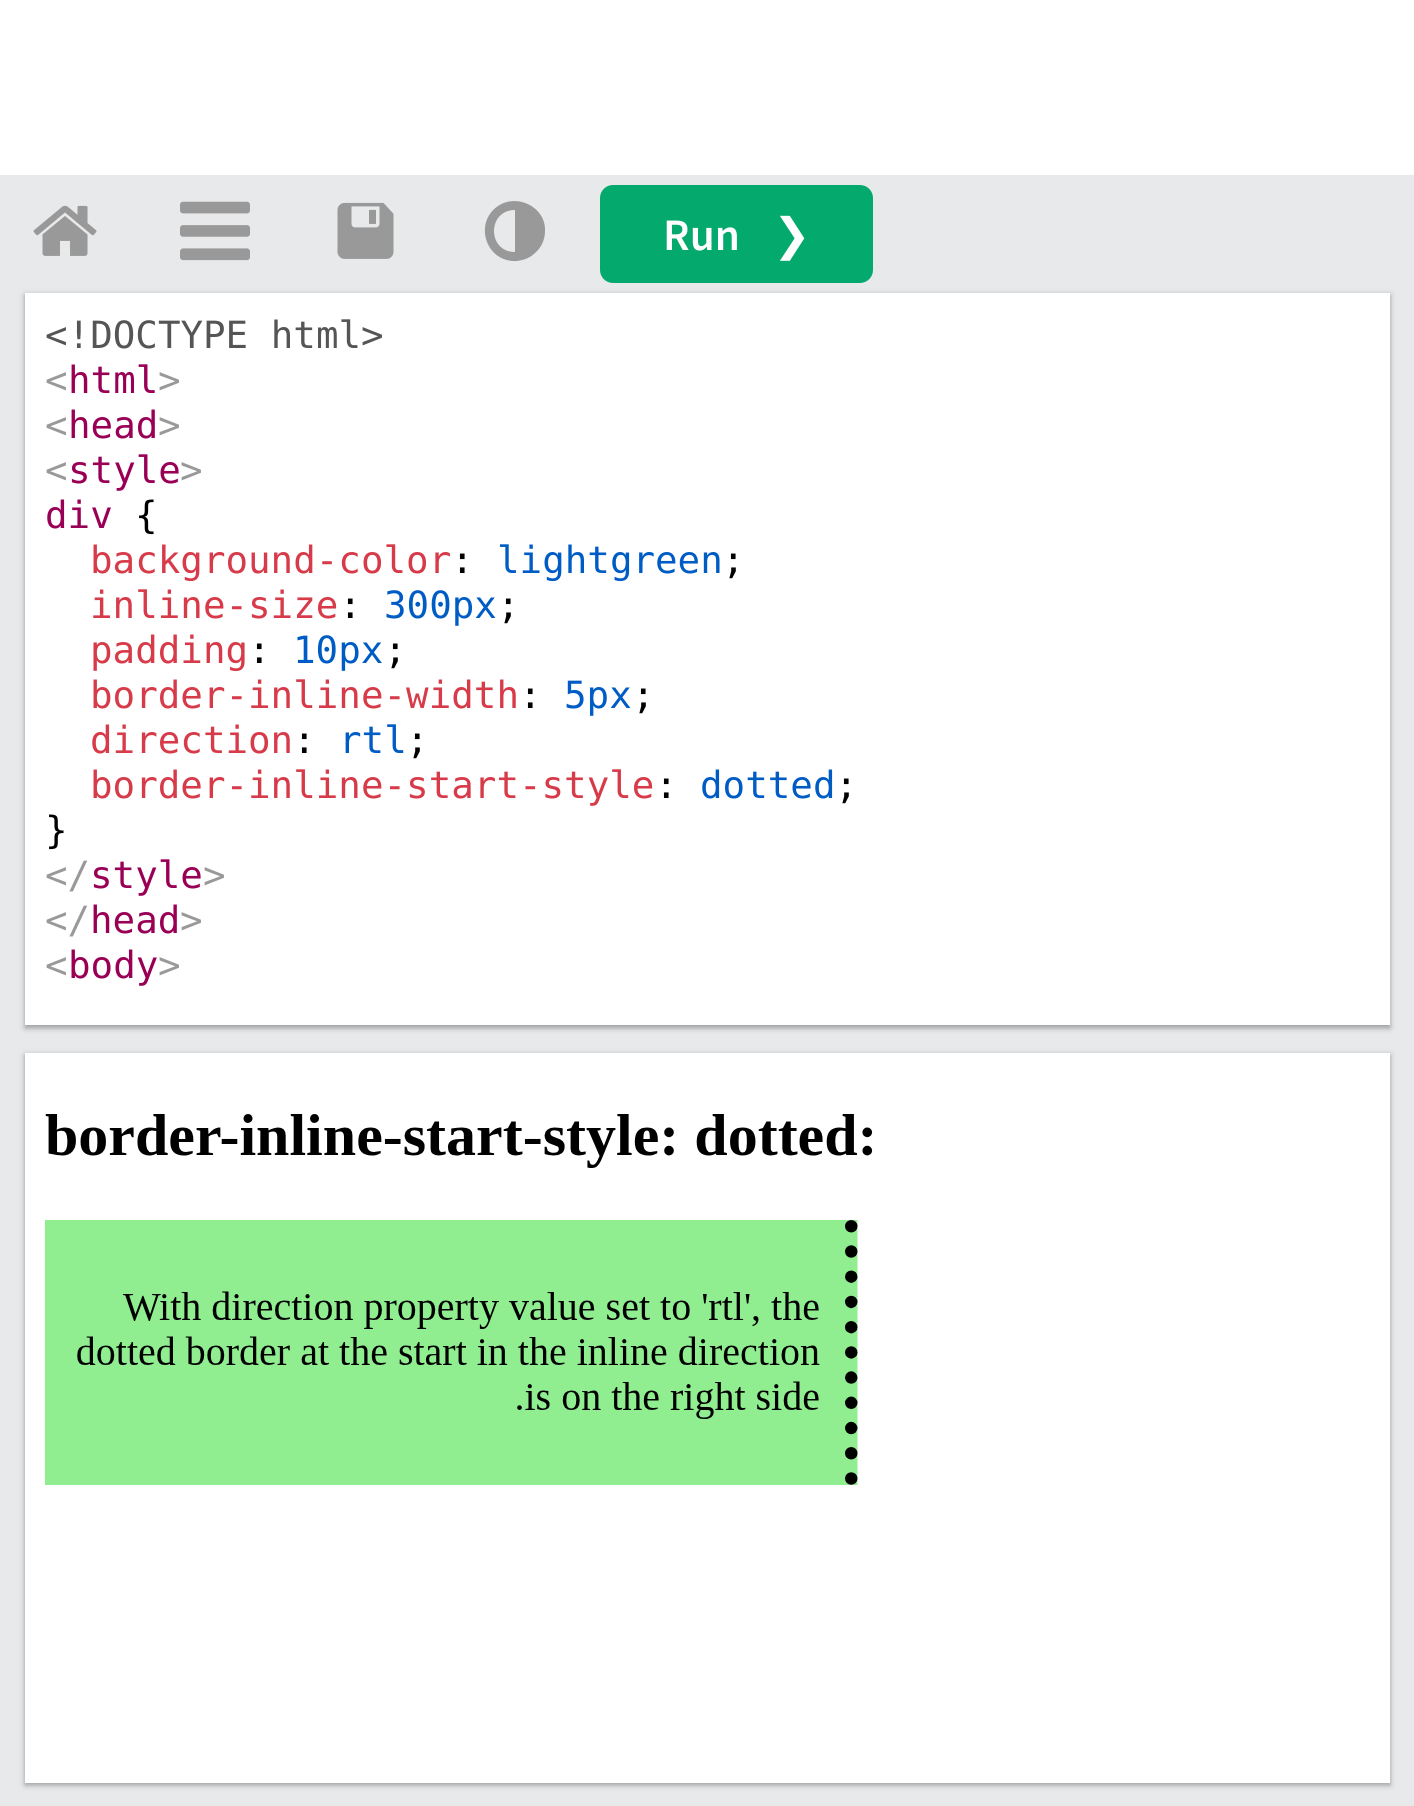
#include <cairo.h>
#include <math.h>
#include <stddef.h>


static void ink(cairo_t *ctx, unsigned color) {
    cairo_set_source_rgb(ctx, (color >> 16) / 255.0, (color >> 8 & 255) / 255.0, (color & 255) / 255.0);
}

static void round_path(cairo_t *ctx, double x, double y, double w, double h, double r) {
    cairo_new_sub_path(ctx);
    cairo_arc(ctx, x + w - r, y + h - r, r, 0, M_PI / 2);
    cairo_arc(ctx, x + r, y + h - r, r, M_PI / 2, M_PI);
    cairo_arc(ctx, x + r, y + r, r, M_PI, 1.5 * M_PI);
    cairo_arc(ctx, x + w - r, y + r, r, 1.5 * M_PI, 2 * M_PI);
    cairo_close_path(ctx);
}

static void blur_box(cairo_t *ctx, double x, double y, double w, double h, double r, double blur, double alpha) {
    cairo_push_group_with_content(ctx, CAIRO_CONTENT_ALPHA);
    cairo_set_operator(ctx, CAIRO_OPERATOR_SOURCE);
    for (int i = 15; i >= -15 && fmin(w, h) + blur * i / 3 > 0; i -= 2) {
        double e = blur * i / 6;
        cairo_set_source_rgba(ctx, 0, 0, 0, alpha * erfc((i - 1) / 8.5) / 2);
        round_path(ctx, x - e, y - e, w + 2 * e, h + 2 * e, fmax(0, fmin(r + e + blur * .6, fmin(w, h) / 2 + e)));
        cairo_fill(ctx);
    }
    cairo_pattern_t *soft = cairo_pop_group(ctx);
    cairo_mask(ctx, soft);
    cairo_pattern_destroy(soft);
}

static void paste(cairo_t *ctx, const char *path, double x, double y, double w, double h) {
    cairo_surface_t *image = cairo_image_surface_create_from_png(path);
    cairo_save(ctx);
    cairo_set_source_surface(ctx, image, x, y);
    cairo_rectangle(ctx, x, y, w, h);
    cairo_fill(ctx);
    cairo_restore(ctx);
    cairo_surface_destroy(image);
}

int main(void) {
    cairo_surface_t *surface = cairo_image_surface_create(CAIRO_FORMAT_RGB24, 1414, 1806);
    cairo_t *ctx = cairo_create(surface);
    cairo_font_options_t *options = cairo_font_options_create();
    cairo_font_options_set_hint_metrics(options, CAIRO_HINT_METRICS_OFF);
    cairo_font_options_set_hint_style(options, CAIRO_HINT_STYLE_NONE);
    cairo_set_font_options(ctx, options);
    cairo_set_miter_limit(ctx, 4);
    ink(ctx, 0xFFFFFF);
    cairo_paint(ctx);
    ink(ctx, 0xE7E9EB);
    cairo_rectangle(ctx, 0, 175, 1414, 1631);
    cairo_fill(ctx);
    paste(ctx, "media/1.png", 33, 205, 64, 51);
    paste(ctx, "media/2.png", 180, 201, 70, 60);
    paste(ctx, "media/3.png", 337, 202, 57, 57);
    ink(ctx, 0x999999);
    cairo_new_path(ctx);
    cairo_move_to(ctx, 515, 252);
    cairo_line_to(ctx, 515, 210);
    cairo_curve_to(ctx, 487, 210, 487, 252, 515, 252);
    cairo_close_path(ctx);
    cairo_move_to(ctx, 545, 231);
    cairo_curve_to(ctx, 545, 240, 541, 248, 535, 253);
    cairo_curve_to(ctx, 530, 258, 524, 260, 517, 261);
    cairo_curve_to(ctx, 486, 263, 473, 223, 498, 206);
    cairo_curve_to(ctx, 517, 193, 546, 207, 545, 231);
    cairo_close_path(ctx);
    cairo_fill(ctx);
    ink(ctx, 0x04AA6D);
    round_path(ctx, 600, 185, 273, 98, 13);
    cairo_fill(ctx);
    cairo_select_font_face(ctx, "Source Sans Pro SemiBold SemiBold", CAIRO_FONT_SLANT_NORMAL, CAIRO_FONT_WEIGHT_NORMAL);
    cairo_set_font_size(ctx, 45);
    ink(ctx, 0xFFFFFF);
    cairo_move_to(ctx, 663, 250);
    cairo_show_text(ctx, "Run");
    cairo_select_font_face(ctx, "DejaVu Sans", CAIRO_FONT_SLANT_NORMAL, CAIRO_FONT_WEIGHT_NORMAL);
    cairo_move_to(ctx, 773, 250);
    cairo_show_text(ctx, "❯");
    ink(ctx, 0x000000);
    blur_box(ctx, 25, 295, 1365, 733, 0, 2.5, 0.24);
    blur_box(ctx, 25, 295, 1365, 733, 0, 4, 0.12);
    ink(ctx, 0xFFFFFF);
    cairo_rectangle(ctx, 25, 293, 1365, 732);
    cairo_fill(ctx);
    cairo_select_font_face(ctx, "DejaVu Sans Mono", CAIRO_FONT_SLANT_NORMAL, CAIRO_FONT_WEIGHT_NORMAL);
    cairo_set_font_size(ctx, 37.5);
    ink(ctx, 0x555555);
    cairo_move_to(ctx, 45, 348);
    cairo_show_text(ctx, "<!DOCTYPE html>");
    ink(ctx, 0x999999);
    cairo_move_to(ctx, 45, 393);
    cairo_show_text(ctx, "<");
    ink(ctx, 0x990055);
    cairo_move_to(ctx, 68, 393);
    cairo_show_text(ctx, "html");
    ink(ctx, 0x999999);
    cairo_move_to(ctx, 158, 393);
    cairo_show_text(ctx, ">");
    cairo_move_to(ctx, 45, 438);
    cairo_show_text(ctx, "<");
    ink(ctx, 0x990055);
    cairo_move_to(ctx, 68, 438);
    cairo_show_text(ctx, "head");
    ink(ctx, 0x999999);
    cairo_move_to(ctx, 158, 438);
    cairo_show_text(ctx, ">");
    cairo_move_to(ctx, 45, 483);
    cairo_show_text(ctx, "<");
    ink(ctx, 0x990055);
    cairo_move_to(ctx, 68, 483);
    cairo_show_text(ctx, "style");
    ink(ctx, 0x999999);
    cairo_move_to(ctx, 180, 483);
    cairo_show_text(ctx, ">");
    ink(ctx, 0x990055);
    cairo_move_to(ctx, 45, 528);
    cairo_show_text(ctx, "div");
    ink(ctx, 0x000000);
    cairo_move_to(ctx, 135, 528);
    cairo_show_text(ctx, "{");
    ink(ctx, 0xD73A49);
    cairo_move_to(ctx, 90, 573);
    cairo_show_text(ctx, "background-color");
    ink(ctx, 0x000000);
    cairo_move_to(ctx, 451, 573);
    cairo_show_text(ctx, ":");
    ink(ctx, 0x005CC5);
    cairo_move_to(ctx, 497, 573);
    cairo_show_text(ctx, "lightgreen");
    ink(ctx, 0x000000);
    cairo_move_to(ctx, 722, 573);
    cairo_show_text(ctx, ";");
    ink(ctx, 0xD73A49);
    cairo_move_to(ctx, 90, 618);
    cairo_show_text(ctx, "inline-size");
    ink(ctx, 0x000000);
    cairo_move_to(ctx, 339, 618);
    cairo_show_text(ctx, ":");
    ink(ctx, 0x005CC5);
    cairo_move_to(ctx, 384, 618);
    cairo_show_text(ctx, "300px");
    ink(ctx, 0x000000);
    cairo_move_to(ctx, 497, 618);
    cairo_show_text(ctx, ";");
    ink(ctx, 0xD73A49);
    cairo_move_to(ctx, 90, 663);
    cairo_show_text(ctx, "padding");
    ink(ctx, 0x000000);
    cairo_move_to(ctx, 248, 663);
    cairo_show_text(ctx, ":");
    ink(ctx, 0x005CC5);
    cairo_move_to(ctx, 293, 663);
    cairo_show_text(ctx, "10px");
    ink(ctx, 0x000000);
    cairo_move_to(ctx, 384, 663);
    cairo_show_text(ctx, ";");
    ink(ctx, 0xD73A49);
    cairo_move_to(ctx, 90, 708);
    cairo_show_text(ctx, "border-inline-width");
    ink(ctx, 0x000000);
    cairo_move_to(ctx, 519, 708);
    cairo_show_text(ctx, ":");
    ink(ctx, 0x005CC5);
    cairo_move_to(ctx, 564, 708);
    cairo_show_text(ctx, "5px");
    ink(ctx, 0x000000);
    cairo_move_to(ctx, 632, 708);
    cairo_show_text(ctx, ";");
    ink(ctx, 0xD73A49);
    cairo_move_to(ctx, 90, 753);
    cairo_show_text(ctx, "direction");
    ink(ctx, 0x000000);
    cairo_move_to(ctx, 293, 753);
    cairo_show_text(ctx, ":");
    ink(ctx, 0x005CC5);
    cairo_move_to(ctx, 339, 753);
    cairo_show_text(ctx, "rtl");
    ink(ctx, 0x000000);
    cairo_move_to(ctx, 406, 753);
    cairo_show_text(ctx, ";");
    ink(ctx, 0xD73A49);
    cairo_move_to(ctx, 90, 798);
    cairo_show_text(ctx, "border-inline-start-style");
    ink(ctx, 0x000000);
    cairo_move_to(ctx, 655, 798);
    cairo_show_text(ctx, ":");
    ink(ctx, 0x005CC5);
    cairo_move_to(ctx, 700, 798);
    cairo_show_text(ctx, "dotted");
    ink(ctx, 0x000000);
    cairo_move_to(ctx, 835, 798);
    cairo_show_text(ctx, ";");
    cairo_move_to(ctx, 45, 843);
    cairo_show_text(ctx, "}");
    ink(ctx, 0x999999);
    cairo_move_to(ctx, 45, 888);
    cairo_show_text(ctx, "</");
    ink(ctx, 0x990055);
    cairo_move_to(ctx, 90, 888);
    cairo_show_text(ctx, "style");
    ink(ctx, 0x999999);
    cairo_move_to(ctx, 203, 888);
    cairo_show_text(ctx, ">");
    cairo_move_to(ctx, 45, 933);
    cairo_show_text(ctx, "</");
    ink(ctx, 0x990055);
    cairo_move_to(ctx, 90, 933);
    cairo_show_text(ctx, "head");
    ink(ctx, 0x999999);
    cairo_move_to(ctx, 180, 933);
    cairo_show_text(ctx, ">");
    cairo_move_to(ctx, 45, 978);
    cairo_show_text(ctx, "<");
    ink(ctx, 0x990055);
    cairo_move_to(ctx, 68, 978);
    cairo_show_text(ctx, "body");
    ink(ctx, 0x999999);
    cairo_move_to(ctx, 158, 978);
    cairo_show_text(ctx, ">");
    ink(ctx, 0x000000);
    blur_box(ctx, 25, 1055, 1365, 730, 0, 2.5, 0.24);
    blur_box(ctx, 25, 1055, 1365, 730, 0, 4, 0.12);
    ink(ctx, 0xFFFFFF);
    cairo_rectangle(ctx, 25, 1053, 1365, 730);
    cairo_fill(ctx);
    paste(ctx, "media/4.png", 45, 1114, 828, 371);
    cairo_surface_write_to_png(surface, "image.png");
    cairo_font_options_destroy(options);
    cairo_destroy(ctx);
    cairo_surface_destroy(surface);
    return 0;
}
